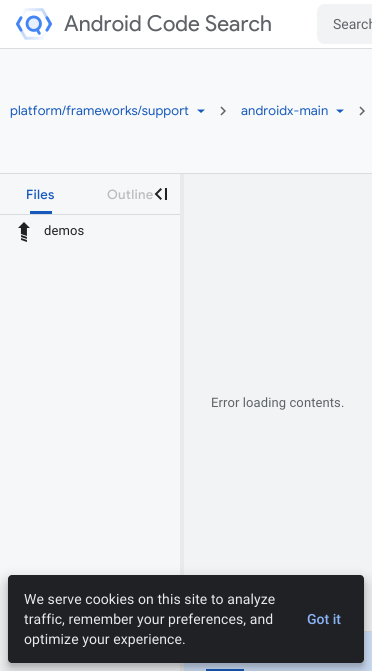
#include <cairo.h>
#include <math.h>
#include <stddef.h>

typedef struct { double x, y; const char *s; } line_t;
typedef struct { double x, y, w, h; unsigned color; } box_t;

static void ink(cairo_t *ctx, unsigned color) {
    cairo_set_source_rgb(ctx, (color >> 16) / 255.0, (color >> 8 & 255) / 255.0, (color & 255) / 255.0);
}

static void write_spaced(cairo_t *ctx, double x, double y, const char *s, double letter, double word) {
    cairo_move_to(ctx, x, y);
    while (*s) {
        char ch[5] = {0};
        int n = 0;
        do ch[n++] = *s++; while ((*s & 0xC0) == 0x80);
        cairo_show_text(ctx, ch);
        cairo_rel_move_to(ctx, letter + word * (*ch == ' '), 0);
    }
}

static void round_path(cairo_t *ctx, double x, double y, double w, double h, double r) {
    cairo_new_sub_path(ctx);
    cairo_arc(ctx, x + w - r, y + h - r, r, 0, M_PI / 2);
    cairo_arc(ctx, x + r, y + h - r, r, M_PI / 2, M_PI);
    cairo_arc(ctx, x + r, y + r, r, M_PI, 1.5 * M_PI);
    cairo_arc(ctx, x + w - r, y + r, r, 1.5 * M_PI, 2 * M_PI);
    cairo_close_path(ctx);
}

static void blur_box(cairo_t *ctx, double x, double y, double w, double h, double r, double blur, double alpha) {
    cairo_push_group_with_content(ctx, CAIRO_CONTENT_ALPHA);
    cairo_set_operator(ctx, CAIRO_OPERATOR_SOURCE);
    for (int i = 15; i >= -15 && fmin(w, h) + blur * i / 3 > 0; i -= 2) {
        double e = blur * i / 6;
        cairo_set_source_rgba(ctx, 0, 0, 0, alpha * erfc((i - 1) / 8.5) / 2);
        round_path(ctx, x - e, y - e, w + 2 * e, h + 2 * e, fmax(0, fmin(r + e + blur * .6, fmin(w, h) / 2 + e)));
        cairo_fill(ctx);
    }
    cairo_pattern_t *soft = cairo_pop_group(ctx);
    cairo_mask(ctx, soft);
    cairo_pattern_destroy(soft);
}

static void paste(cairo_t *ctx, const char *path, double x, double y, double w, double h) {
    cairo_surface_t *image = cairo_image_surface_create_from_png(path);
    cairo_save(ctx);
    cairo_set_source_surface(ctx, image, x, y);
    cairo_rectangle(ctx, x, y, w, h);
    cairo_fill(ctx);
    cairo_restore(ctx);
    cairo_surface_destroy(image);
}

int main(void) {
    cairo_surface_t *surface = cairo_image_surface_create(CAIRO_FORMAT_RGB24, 372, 671);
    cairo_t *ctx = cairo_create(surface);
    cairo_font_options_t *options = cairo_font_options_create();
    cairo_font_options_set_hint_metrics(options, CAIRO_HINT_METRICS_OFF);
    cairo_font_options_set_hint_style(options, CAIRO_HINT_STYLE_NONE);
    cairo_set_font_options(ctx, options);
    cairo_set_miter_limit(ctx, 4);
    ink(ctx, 0xFFFFFF);
    cairo_paint(ctx);
    ink(ctx, 0xDADCE0);
    cairo_rectangle(ctx, 0, 48, 372, 1);
    cairo_fill(ctx);
    paste(ctx, "media/1.png", 16, 8, 36, 32);
    cairo_select_font_face(ctx, "Product Sans", CAIRO_FONT_SLANT_NORMAL, CAIRO_FONT_WEIGHT_NORMAL);
    cairo_set_font_size(ctx, 22);
    ink(ctx, 0x5F6368);
    write_spaced(ctx, 64, 31, "Android Code Search", 0.1, 0);
    ink(ctx, 0xF1F3F4);
    round_path(ctx, 317, 4, 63, 40, 8);
    cairo_fill(ctx);
    cairo_select_font_face(ctx, "Roboto", CAIRO_FONT_SLANT_NORMAL, CAIRO_FONT_WEIGHT_NORMAL);
    cairo_set_font_size(ctx, 14);
    ink(ctx, 0x5F6368);
    cairo_move_to(ctx, 333, 29);
    cairo_show_text(ctx, "Search");
    ink(ctx, 0xDADCE0);
    cairo_rectangle(ctx, 0, 173, 372, 1);
    cairo_fill(ctx);
    ink(ctx, 0xF8F9FA);
    cairo_rectangle(ctx, 0, 49, 372, 124);
    cairo_fill(ctx);
    cairo_select_font_face(ctx, "Google Sans", CAIRO_FONT_SLANT_NORMAL, CAIRO_FONT_WEIGHT_NORMAL);
    cairo_set_font_size(ctx, 13);
    ink(ctx, 0x185ABC);
    write_spaced(ctx, 10, 115, "platform/frameworks/support", 0.1, 0);
    cairo_new_path(ctx);
    cairo_move_to(ctx, 197, 109.5);
    cairo_line_to(ctx, 201, 113);
    cairo_line_to(ctx, 205, 109.5);
    cairo_close_path(ctx);
    cairo_fill(ctx);
    paste(ctx, "media/2.png", 220, 106, 6, 10);
    write_spaced(ctx, 241, 115, "androidx-main", 0.1, 0);
    cairo_new_path(ctx);
    cairo_move_to(ctx, 336, 109.5);
    cairo_line_to(ctx, 340, 113);
    cairo_line_to(ctx, 344, 109.5);
    cairo_close_path(ctx);
    cairo_fill(ctx);
    paste(ctx, "media/2.png", 359, 106, 6, 10);
    ink(ctx, 0xF6F7F9);
    cairo_rectangle(ctx, 0, 174, 180, 497);
    cairo_fill(ctx);
    ink(ctx, 0xDADCE0);
    cairo_rectangle(ctx, 0, 214, 180, 1);
    cairo_fill(ctx);
    cairo_select_font_face(ctx, "Google Sans Medium", CAIRO_FONT_SLANT_NORMAL, CAIRO_FONT_WEIGHT_NORMAL);
    ink(ctx, 0x185ABC);
    write_spaced(ctx, 26, 199, "Files", 0.25, 0);
    cairo_rectangle(ctx, 30, 211, 22, 3);
    cairo_fill(ctx);
    ink(ctx, 0xBABCBF);
    write_spaced(ctx, 107, 199, "Outline", 0.25, 0);
    paste(ctx, "media/3.png", 18, 222, 12, 20);
    cairo_select_font_face(ctx, "Roboto", CAIRO_FONT_SLANT_NORMAL, CAIRO_FONT_WEIGHT_NORMAL);
    ink(ctx, 0x202124);
    write_spaced(ctx, 44, 235, "demos", 0.1, 0);
    paste(ctx, "media/4.png", 154, 188, 13, 12);
    ink(ctx, 0xE8EAED);
    cairo_rectangle(ctx, 180, 174, 4, 497);
    cairo_fill(ctx);
    ink(ctx, 0xF1F3F4);
    cairo_rectangle(ctx, 184, 174, 188, 457);
    cairo_fill(ctx);
    ink(ctx, 0x5F6368);
    write_spaced(ctx, 211, 407, "Error loading contents.", 0.1, 0);
    {
        static const box_t items[] = {
            {364, 631, 8, 1, 0xDADCE0},
            {184, 632, 188, 39, 0xD2E3FC},
            {206, 669, 38, 2, 0x185ABC},
        };
        for (size_t i = 0; i < sizeof items / sizeof *items; i++) {
            ink(ctx, items[i].color);
            cairo_rectangle(ctx, items[i].x, items[i].y, items[i].w, items[i].h);
            cairo_fill(ctx);
        }
    }
    ink(ctx, 0x000000);
    blur_box(ctx, 2, 577, 368, 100, 10, 6, 0.15);
    blur_box(ctx, 8, 579, 356, 88, 4, 2, 0.15);
    ink(ctx, 0x202124);
    round_path(ctx, 8, 575, 356, 88, 4);
    cairo_fill(ctx);
    cairo_set_font_size(ctx, 14);
    ink(ctx, 0xE8EAED);
    {
        static const line_t items[] = {
            {24, 604, "We serve cookies on this site to analyze"},
            {24, 624, "traffic, remember your preferences, and"},
            {24, 644, "optimize your experience."},
        };
        for (size_t i = 0; i < sizeof items / sizeof *items; i++) {
            write_spaced(ctx, items[i].x, items[i].y, items[i].s, 0.1, 0);
        }
    }
    cairo_select_font_face(ctx, "Roboto Medium", CAIRO_FONT_SLANT_NORMAL, CAIRO_FONT_WEIGHT_NORMAL);
    ink(ctx, 0x8AB4F8);
    cairo_move_to(ctx, 307, 624);
    cairo_show_text(ctx, "Got it");
    cairo_surface_write_to_png(surface, "image.png");
    cairo_font_options_destroy(options);
    cairo_destroy(ctx);
    cairo_surface_destroy(surface);
    return 0;
}
